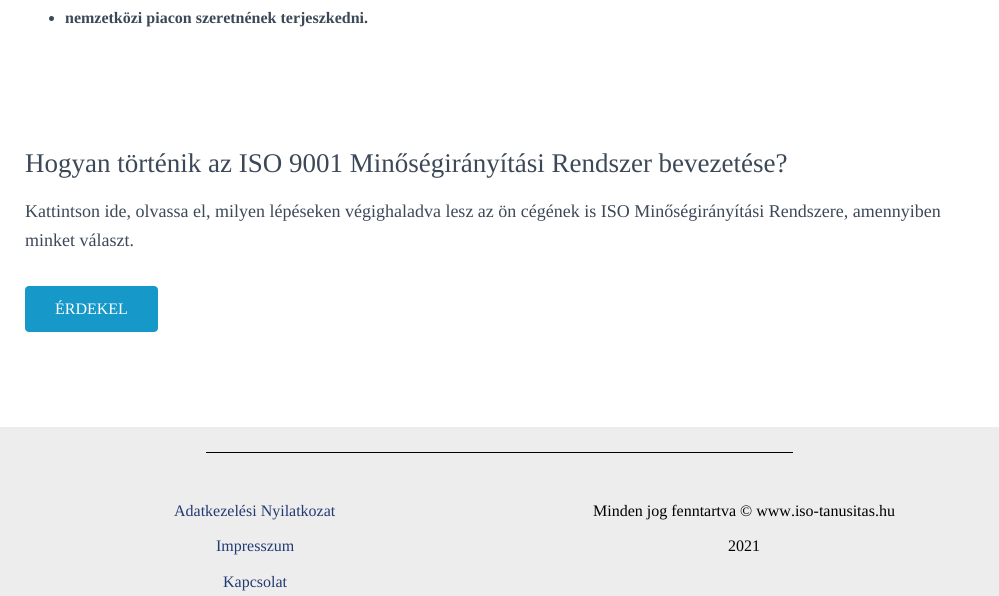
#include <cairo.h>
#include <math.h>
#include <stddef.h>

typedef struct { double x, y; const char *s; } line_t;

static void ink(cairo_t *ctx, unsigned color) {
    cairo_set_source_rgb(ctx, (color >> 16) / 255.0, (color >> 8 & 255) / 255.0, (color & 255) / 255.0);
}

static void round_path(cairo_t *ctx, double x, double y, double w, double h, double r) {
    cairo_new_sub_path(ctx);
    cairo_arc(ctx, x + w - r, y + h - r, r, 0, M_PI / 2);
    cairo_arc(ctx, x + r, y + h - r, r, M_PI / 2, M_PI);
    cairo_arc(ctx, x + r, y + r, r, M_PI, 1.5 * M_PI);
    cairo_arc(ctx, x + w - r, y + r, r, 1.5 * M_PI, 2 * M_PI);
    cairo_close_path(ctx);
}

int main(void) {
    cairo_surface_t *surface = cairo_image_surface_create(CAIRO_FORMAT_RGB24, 999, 596);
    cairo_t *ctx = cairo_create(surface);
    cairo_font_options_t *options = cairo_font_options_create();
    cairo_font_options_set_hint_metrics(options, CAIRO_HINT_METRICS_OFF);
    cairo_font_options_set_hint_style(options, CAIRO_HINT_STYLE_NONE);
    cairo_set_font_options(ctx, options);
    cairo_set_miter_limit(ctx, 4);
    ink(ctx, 0xFFFFFF);
    cairo_paint(ctx);
    ink(ctx, 0x3C4858);
    cairo_arc(ctx, 51.5, 18.5, 2.5, 0, 2 * M_PI);
    cairo_fill(ctx);
    cairo_select_font_face(ctx, "Liberation Serif", CAIRO_FONT_SLANT_NORMAL, CAIRO_FONT_WEIGHT_BOLD);
    cairo_set_font_size(ctx, 16);
    cairo_move_to(ctx, 65, 23);
    cairo_show_text(ctx, "nemzetközi piacon szeretnének terjeszkedni.");
    cairo_select_font_face(ctx, "Liberation Serif", CAIRO_FONT_SLANT_NORMAL, CAIRO_FONT_WEIGHT_NORMAL);
    cairo_set_font_size(ctx, 27);
    cairo_move_to(ctx, 25, 172);
    cairo_show_text(ctx, "Hogyan történik az ISO 9001 Minőségirányítási Rendszer bevezetése?");
    cairo_set_font_size(ctx, 18);
    cairo_move_to(ctx, 25, 217);
    cairo_show_text(ctx, "Kattintson ide, olvassa el, milyen lépéseken végighaladva lesz az ön cégének is ISO Minőségirányítási Rendszere, amennyiben");
    cairo_move_to(ctx, 25, 246);
    cairo_show_text(ctx, "minket választ.");
    ink(ctx, 0x1698C9);
    round_path(ctx, 25, 286, 133, 46, 4);
    cairo_fill(ctx);
    cairo_set_font_size(ctx, 16);
    ink(ctx, 0xFFFFFF);
    cairo_move_to(ctx, 55, 314);
    cairo_show_text(ctx, "ÉRDEKEL");
    ink(ctx, 0xEDEDED);
    cairo_rectangle(ctx, 0, 427, 999, 169);
    cairo_fill(ctx);
    ink(ctx, 0x000000);
    cairo_rectangle(ctx, 206, 452, 587, 1);
    cairo_fill(ctx);
    ink(ctx, 0x213A72);
    {
        static const line_t items[] = {
            {174, 516, "Adatkezelési Nyilatkozat"},
            {216, 551, "Impresszum"},
            {223, 587, "Kapcsolat"},
        };
        for (size_t i = 0; i < sizeof items / sizeof *items; i++) {
            cairo_move_to(ctx, items[i].x, items[i].y);
            cairo_show_text(ctx, items[i].s);
        }
    }
    ink(ctx, 0x000000);
    cairo_move_to(ctx, 593, 516);
    cairo_show_text(ctx, "Minden jog fenntartva © www.iso-tanusitas.hu");
    cairo_move_to(ctx, 728, 551);
    cairo_show_text(ctx, "2021");
    cairo_surface_write_to_png(surface, "image.png");
    cairo_font_options_destroy(options);
    cairo_destroy(ctx);
    cairo_surface_destroy(surface);
    return 0;
}
